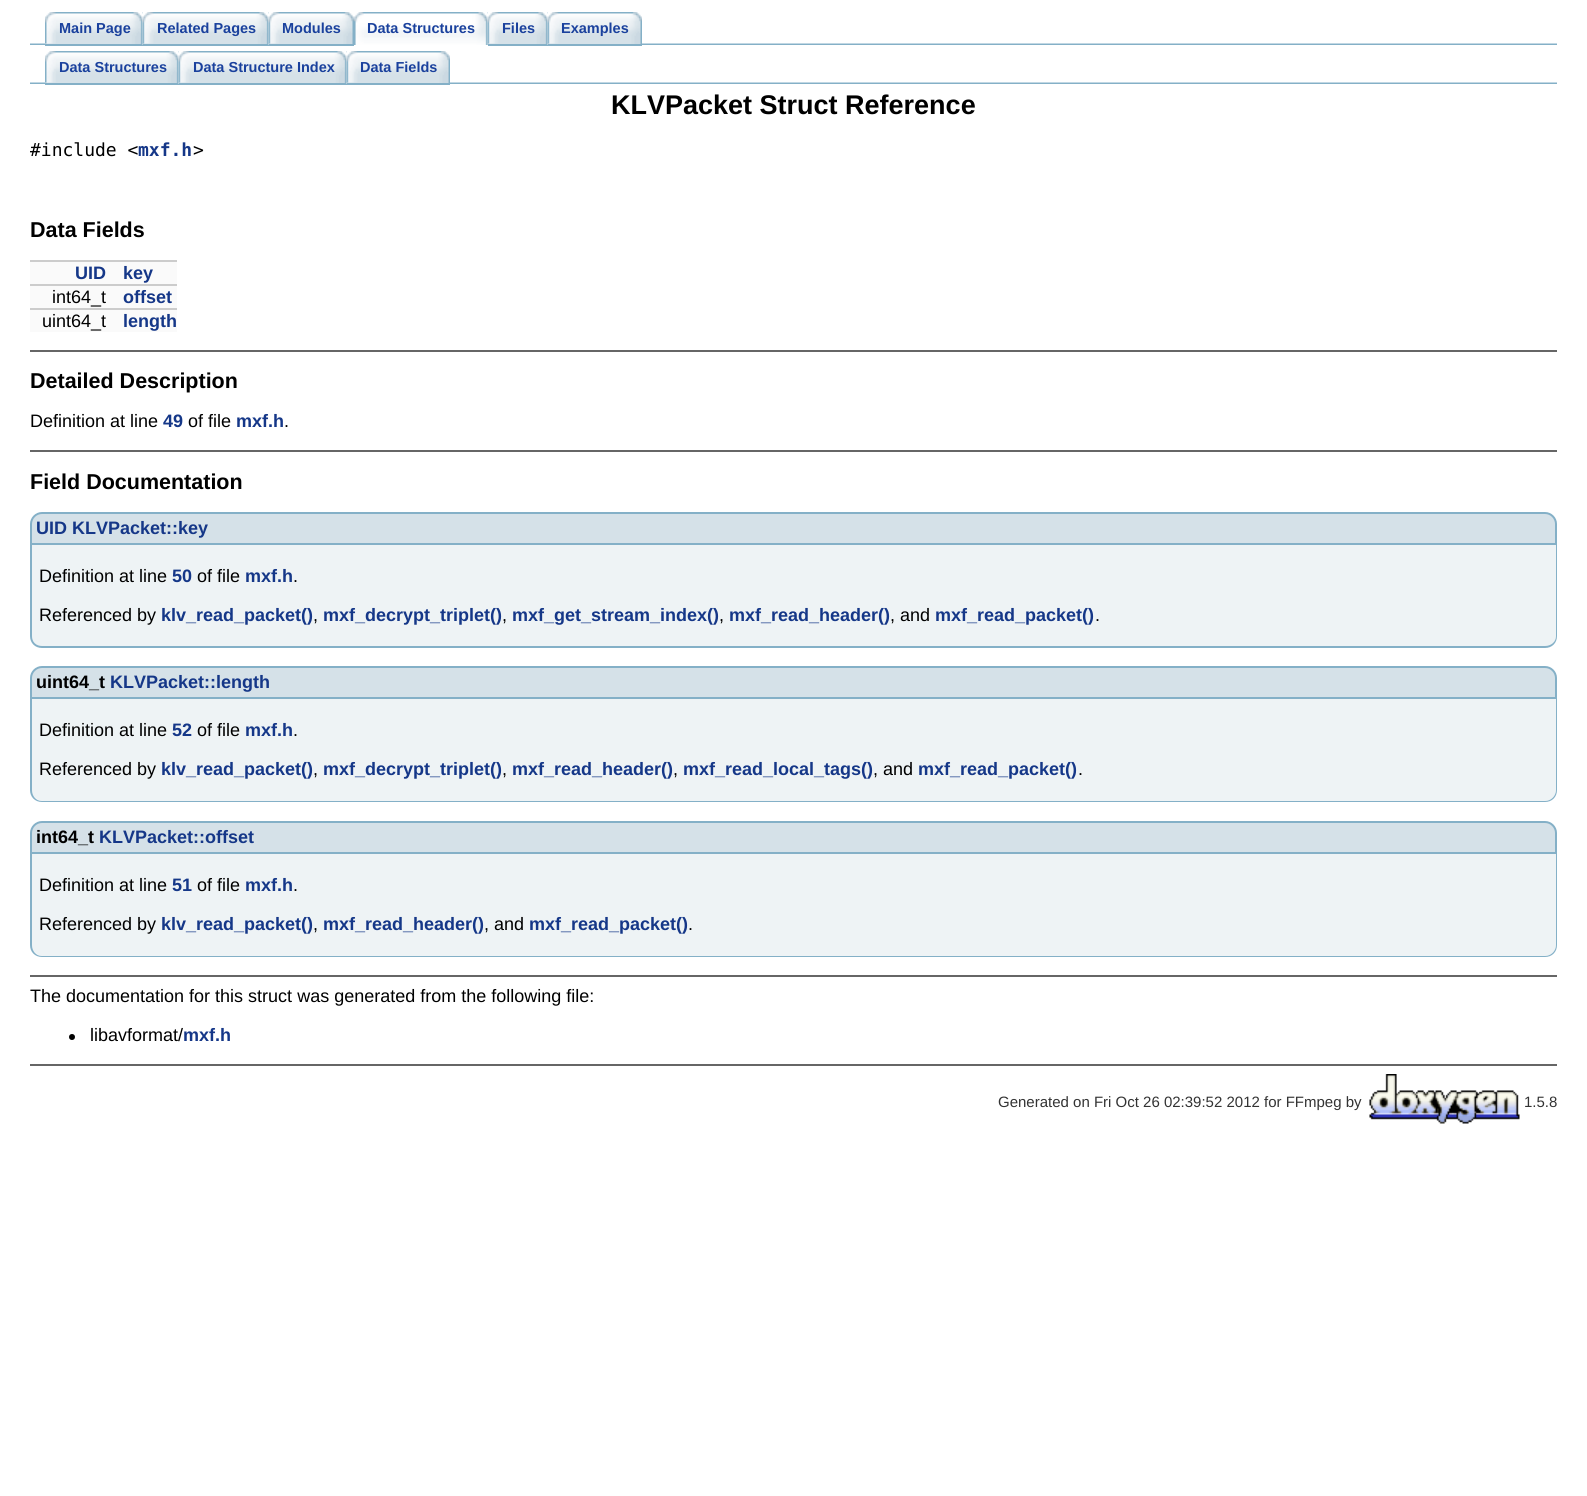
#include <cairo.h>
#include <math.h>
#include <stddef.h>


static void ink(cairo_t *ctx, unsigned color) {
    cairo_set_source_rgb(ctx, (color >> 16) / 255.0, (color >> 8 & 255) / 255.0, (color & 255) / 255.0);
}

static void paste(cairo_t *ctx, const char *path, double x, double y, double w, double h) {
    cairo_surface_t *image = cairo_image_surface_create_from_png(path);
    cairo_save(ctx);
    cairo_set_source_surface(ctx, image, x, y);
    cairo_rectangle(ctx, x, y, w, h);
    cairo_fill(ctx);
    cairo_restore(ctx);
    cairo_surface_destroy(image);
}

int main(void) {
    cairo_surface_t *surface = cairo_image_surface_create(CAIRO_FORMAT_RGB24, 1587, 1496);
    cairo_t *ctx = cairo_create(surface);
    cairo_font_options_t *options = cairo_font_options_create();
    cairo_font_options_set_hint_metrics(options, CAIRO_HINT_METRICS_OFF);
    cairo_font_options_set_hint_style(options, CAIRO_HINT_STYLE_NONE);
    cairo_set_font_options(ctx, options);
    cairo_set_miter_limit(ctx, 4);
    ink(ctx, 0xFFFFFF);
    cairo_paint(ctx);
    paste(ctx, "media/1.png", 30, 43, 1527, 2);
    paste(ctx, "media/2.png", 45, 12, 98, 32);
    ink(ctx, 0x84B0C7);
    cairo_rectangle(ctx, 45, 45, 98, 1);
    cairo_fill(ctx);
    paste(ctx, "media/3.png", 45, 12, 11, 32);
    cairo_select_font_face(ctx, "Liberation Sans", CAIRO_FONT_SLANT_NORMAL, CAIRO_FONT_WEIGHT_BOLD);
    cairo_set_font_size(ctx, 14.5);
    ink(ctx, 0x1A419D);
    cairo_move_to(ctx, 59, 33);
    cairo_show_text(ctx, "Main Page");
    paste(ctx, "media/4.png", 142, 12, 127, 33);
    ink(ctx, 0x84B0C7);
    cairo_rectangle(ctx, 143, 44, 126, 2);
    cairo_fill(ctx);
    paste(ctx, "media/5.png", 142, 12, 12, 32);
    ink(ctx, 0x1A419D);
    cairo_move_to(ctx, 157, 33);
    cairo_show_text(ctx, "Related Pages");
    paste(ctx, "media/6.png", 268, 12, 86, 33);
    ink(ctx, 0x84B0C7);
    cairo_rectangle(ctx, 269, 44, 85, 2);
    cairo_fill(ctx);
    paste(ctx, "media/5.png", 268, 12, 12, 32);
    ink(ctx, 0x1A419D);
    cairo_move_to(ctx, 282, 33);
    cairo_show_text(ctx, "Modules");
    paste(ctx, "media/7.png", 364, 12, 124, 33);
    paste(ctx, "media/8.png", 354, 12, 10, 33);
    cairo_move_to(ctx, 367, 33);
    cairo_show_text(ctx, "Data Structures");
    paste(ctx, "media/9.png", 487, 12, 61, 33);
    ink(ctx, 0x84B0C7);
    cairo_rectangle(ctx, 488, 44, 60, 2);
    cairo_fill(ctx);
    paste(ctx, "media/5.png", 487, 12, 12, 32);
    ink(ctx, 0x1A419D);
    cairo_move_to(ctx, 502, 33);
    cairo_show_text(ctx, "Files");
    paste(ctx, "media/10.png", 547, 12, 95, 33);
    ink(ctx, 0x84B0C7);
    cairo_rectangle(ctx, 548, 44, 94, 2);
    cairo_fill(ctx);
    paste(ctx, "media/11.png", 547, 12, 12, 32);
    ink(ctx, 0x1A419D);
    cairo_move_to(ctx, 561, 33);
    cairo_show_text(ctx, "Examples");
    paste(ctx, "media/1.png", 30, 82, 1527, 2);
    paste(ctx, "media/12.png", 45, 51, 134, 32);
    ink(ctx, 0x84B0C7);
    cairo_rectangle(ctx, 45, 84, 134, 1);
    cairo_fill(ctx);
    paste(ctx, "media/3.png", 45, 51, 11, 32);
    ink(ctx, 0x1A419D);
    cairo_move_to(ctx, 59, 72);
    cairo_show_text(ctx, "Data Structures");
    paste(ctx, "media/13.png", 178, 51, 169, 33);
    ink(ctx, 0x84B0C7);
    cairo_rectangle(ctx, 179, 83, 168, 2);
    cairo_fill(ctx);
    paste(ctx, "media/5.png", 178, 51, 12, 32);
    ink(ctx, 0x1A419D);
    cairo_move_to(ctx, 193, 72);
    cairo_show_text(ctx, "Data Structure Index");
    paste(ctx, "media/14.png", 346, 51, 104, 33);
    ink(ctx, 0x84B0C7);
    cairo_rectangle(ctx, 347, 83, 103, 2);
    cairo_fill(ctx);
    paste(ctx, "media/5.png", 346, 51, 12, 32);
    ink(ctx, 0x1A419D);
    cairo_move_to(ctx, 360, 72);
    cairo_show_text(ctx, "Data Fields");
    cairo_set_font_size(ctx, 27);
    ink(ctx, 0x000000);
    cairo_move_to(ctx, 611, 114);
    cairo_show_text(ctx, "KLVPacket Struct Reference");
    cairo_select_font_face(ctx, "DejaVu Sans Mono", CAIRO_FONT_SLANT_NORMAL, CAIRO_FONT_WEIGHT_NORMAL);
    cairo_set_font_size(ctx, 18);
    cairo_move_to(ctx, 30, 156);
    cairo_show_text(ctx, "#include <");
    cairo_select_font_face(ctx, "DejaVu Sans Mono", CAIRO_FONT_SLANT_NORMAL, CAIRO_FONT_WEIGHT_BOLD);
    ink(ctx, 0x153788);
    cairo_move_to(ctx, 138, 156);
    cairo_show_text(ctx, "mxf.h");
    cairo_select_font_face(ctx, "DejaVu Sans Mono", CAIRO_FONT_SLANT_NORMAL, CAIRO_FONT_WEIGHT_NORMAL);
    ink(ctx, 0x000000);
    cairo_move_to(ctx, 193, 156);
    cairo_show_text(ctx, ">");
    cairo_select_font_face(ctx, "Liberation Sans", CAIRO_FONT_SLANT_NORMAL, CAIRO_FONT_WEIGHT_BOLD);
    cairo_set_font_size(ctx, 21.5);
    cairo_move_to(ctx, 30, 237);
    cairo_show_text(ctx, "Data Fields");
    ink(ctx, 0xFAFAFA);
    cairo_rectangle(ctx, 30, 262, 147, 22);
    cairo_fill(ctx);
    ink(ctx, 0xCCCCCC);
    cairo_rectangle(ctx, 30, 260, 147, 2);
    cairo_fill(ctx);
    cairo_set_font_size(ctx, 18);
    ink(ctx, 0x153788);
    cairo_move_to(ctx, 75, 279);
    cairo_show_text(ctx, "UID");
    cairo_move_to(ctx, 123, 279);
    cairo_show_text(ctx, "key");
    ink(ctx, 0xFAFAFA);
    cairo_rectangle(ctx, 30, 286, 147, 22);
    cairo_fill(ctx);
    ink(ctx, 0xCCCCCC);
    cairo_rectangle(ctx, 30, 284, 147, 2);
    cairo_fill(ctx);
    cairo_select_font_face(ctx, "Liberation Sans", CAIRO_FONT_SLANT_NORMAL, CAIRO_FONT_WEIGHT_NORMAL);
    ink(ctx, 0x000000);
    cairo_move_to(ctx, 52, 303);
    cairo_show_text(ctx, "int64_t");
    cairo_select_font_face(ctx, "Liberation Sans", CAIRO_FONT_SLANT_NORMAL, CAIRO_FONT_WEIGHT_BOLD);
    ink(ctx, 0x153788);
    cairo_move_to(ctx, 123, 303);
    cairo_show_text(ctx, "offset");
    ink(ctx, 0xFAFAFA);
    cairo_rectangle(ctx, 30, 310, 147, 22);
    cairo_fill(ctx);
    ink(ctx, 0xCCCCCC);
    cairo_rectangle(ctx, 30, 308, 147, 2);
    cairo_fill(ctx);
    cairo_select_font_face(ctx, "Liberation Sans", CAIRO_FONT_SLANT_NORMAL, CAIRO_FONT_WEIGHT_NORMAL);
    ink(ctx, 0x000000);
    cairo_move_to(ctx, 42, 327);
    cairo_show_text(ctx, "uint64_t");
    cairo_select_font_face(ctx, "Liberation Sans", CAIRO_FONT_SLANT_NORMAL, CAIRO_FONT_WEIGHT_BOLD);
    ink(ctx, 0x153788);
    cairo_move_to(ctx, 123, 327);
    cairo_show_text(ctx, "length");
    ink(ctx, 0x666666);
    cairo_rectangle(ctx, 30, 350, 1527, 2);
    cairo_fill(ctx);
    cairo_set_font_size(ctx, 21.5);
    ink(ctx, 0x000000);
    cairo_move_to(ctx, 30, 388);
    cairo_show_text(ctx, "Detailed Description");
    cairo_select_font_face(ctx, "Liberation Sans", CAIRO_FONT_SLANT_NORMAL, CAIRO_FONT_WEIGHT_NORMAL);
    cairo_set_font_size(ctx, 18);
    cairo_move_to(ctx, 30, 427);
    cairo_show_text(ctx, "Definition at line");
    cairo_select_font_face(ctx, "Liberation Sans", CAIRO_FONT_SLANT_NORMAL, CAIRO_FONT_WEIGHT_BOLD);
    ink(ctx, 0x153788);
    cairo_move_to(ctx, 163, 427);
    cairo_show_text(ctx, "49");
    cairo_select_font_face(ctx, "Liberation Sans", CAIRO_FONT_SLANT_NORMAL, CAIRO_FONT_WEIGHT_NORMAL);
    ink(ctx, 0x000000);
    cairo_move_to(ctx, 188, 427);
    cairo_show_text(ctx, "of file");
    cairo_select_font_face(ctx, "Liberation Sans", CAIRO_FONT_SLANT_NORMAL, CAIRO_FONT_WEIGHT_BOLD);
    ink(ctx, 0x153788);
    cairo_move_to(ctx, 236, 427);
    cairo_show_text(ctx, "mxf.h");
    cairo_select_font_face(ctx, "Liberation Sans", CAIRO_FONT_SLANT_NORMAL, CAIRO_FONT_WEIGHT_NORMAL);
    ink(ctx, 0x000000);
    cairo_move_to(ctx, 284, 427);
    cairo_show_text(ctx, ".");
    ink(ctx, 0x666666);
    cairo_rectangle(ctx, 30, 450, 1527, 2);
    cairo_fill(ctx);
    cairo_select_font_face(ctx, "Liberation Sans", CAIRO_FONT_SLANT_NORMAL, CAIRO_FONT_WEIGHT_BOLD);
    cairo_set_font_size(ctx, 21.5);
    ink(ctx, 0x000000);
    cairo_move_to(ctx, 30, 489);
    cairo_show_text(ctx, "Field Documentation");
    ink(ctx, 0xD5E1E8);
    cairo_new_path(ctx);
    cairo_move_to(ctx, 42, 513);
    cairo_line_to(ctx, 1545, 513);
    cairo_curve_to(ctx, 1551, 513, 1556, 518, 1556, 524);
    cairo_line_to(ctx, 1556, 544);
    cairo_line_to(ctx, 31, 544);
    cairo_line_to(ctx, 31, 524);
    cairo_curve_to(ctx, 31, 518, 36, 513, 42, 513);
    cairo_close_path(ctx);
    cairo_fill_preserve(ctx);
    ink(ctx, 0x84B0C7);
    cairo_stroke(ctx);
    cairo_set_font_size(ctx, 18);
    ink(ctx, 0x153788);
    cairo_move_to(ctx, 36, 534);
    cairo_show_text(ctx, "UID KLVPacket::key");
    ink(ctx, 0xEEF3F5);
    cairo_new_path(ctx);
    cairo_move_to(ctx, 32, 545);
    cairo_line_to(ctx, 1556, 545);
    cairo_line_to(ctx, 1556, 636);
    cairo_curve_to(ctx, 1556, 642, 1551, 647, 1545, 647);
    cairo_line_to(ctx, 43, 647);
    cairo_curve_to(ctx, 37, 647, 32, 642, 32, 636);
    cairo_close_path(ctx);
    cairo_fill(ctx);
    ink(ctx, 0x84B0C7);
    cairo_set_fill_rule(ctx, CAIRO_FILL_RULE_EVEN_ODD);
    cairo_new_path(ctx);
    cairo_move_to(ctx, 30, 544);
    cairo_line_to(ctx, 1557, 544);
    cairo_line_to(ctx, 1557, 636);
    cairo_curve_to(ctx, 1557, 643, 1552, 648, 1545, 648);
    cairo_line_to(ctx, 42, 648);
    cairo_curve_to(ctx, 35, 648, 30, 643, 30, 636);
    cairo_close_path(ctx);
    cairo_move_to(ctx, 32, 544);
    cairo_line_to(ctx, 1556, 544);
    cairo_line_to(ctx, 1556, 636);
    cairo_curve_to(ctx, 1556, 642, 1551, 646, 1545, 646);
    cairo_line_to(ctx, 42, 646);
    cairo_curve_to(ctx, 36, 646, 32, 642, 32, 636);
    cairo_close_path(ctx);
    cairo_fill(ctx);
    cairo_select_font_face(ctx, "Liberation Sans", CAIRO_FONT_SLANT_NORMAL, CAIRO_FONT_WEIGHT_NORMAL);
    ink(ctx, 0x000000);
    cairo_move_to(ctx, 39, 582);
    cairo_show_text(ctx, "Definition at line");
    cairo_select_font_face(ctx, "Liberation Sans", CAIRO_FONT_SLANT_NORMAL, CAIRO_FONT_WEIGHT_BOLD);
    ink(ctx, 0x153788);
    cairo_move_to(ctx, 172, 582);
    cairo_show_text(ctx, "50");
    cairo_select_font_face(ctx, "Liberation Sans", CAIRO_FONT_SLANT_NORMAL, CAIRO_FONT_WEIGHT_NORMAL);
    ink(ctx, 0x000000);
    cairo_move_to(ctx, 197, 582);
    cairo_show_text(ctx, "of file");
    cairo_select_font_face(ctx, "Liberation Sans", CAIRO_FONT_SLANT_NORMAL, CAIRO_FONT_WEIGHT_BOLD);
    ink(ctx, 0x153788);
    cairo_move_to(ctx, 245, 582);
    cairo_show_text(ctx, "mxf.h");
    cairo_select_font_face(ctx, "Liberation Sans", CAIRO_FONT_SLANT_NORMAL, CAIRO_FONT_WEIGHT_NORMAL);
    ink(ctx, 0x000000);
    cairo_move_to(ctx, 293, 582);
    cairo_show_text(ctx, ".");
    cairo_move_to(ctx, 39, 621);
    cairo_show_text(ctx, "Referenced by");
    cairo_select_font_face(ctx, "Liberation Sans", CAIRO_FONT_SLANT_NORMAL, CAIRO_FONT_WEIGHT_BOLD);
    ink(ctx, 0x153788);
    cairo_move_to(ctx, 161, 621);
    cairo_show_text(ctx, "klv_read_packet()");
    cairo_select_font_face(ctx, "Liberation Sans", CAIRO_FONT_SLANT_NORMAL, CAIRO_FONT_WEIGHT_NORMAL);
    ink(ctx, 0x000000);
    cairo_move_to(ctx, 313, 621);
    cairo_show_text(ctx, ",");
    cairo_select_font_face(ctx, "Liberation Sans", CAIRO_FONT_SLANT_NORMAL, CAIRO_FONT_WEIGHT_BOLD);
    ink(ctx, 0x153788);
    cairo_move_to(ctx, 323, 621);
    cairo_show_text(ctx, "mxf_decrypt_triplet()");
    cairo_select_font_face(ctx, "Liberation Sans", CAIRO_FONT_SLANT_NORMAL, CAIRO_FONT_WEIGHT_NORMAL);
    ink(ctx, 0x000000);
    cairo_move_to(ctx, 502, 621);
    cairo_show_text(ctx, ",");
    cairo_select_font_face(ctx, "Liberation Sans", CAIRO_FONT_SLANT_NORMAL, CAIRO_FONT_WEIGHT_BOLD);
    ink(ctx, 0x153788);
    cairo_move_to(ctx, 512, 621);
    cairo_show_text(ctx, "mxf_get_stream_index()");
    cairo_select_font_face(ctx, "Liberation Sans", CAIRO_FONT_SLANT_NORMAL, CAIRO_FONT_WEIGHT_NORMAL);
    ink(ctx, 0x000000);
    cairo_move_to(ctx, 719, 621);
    cairo_show_text(ctx, ",");
    cairo_select_font_face(ctx, "Liberation Sans", CAIRO_FONT_SLANT_NORMAL, CAIRO_FONT_WEIGHT_BOLD);
    ink(ctx, 0x153788);
    cairo_move_to(ctx, 729, 621);
    cairo_show_text(ctx, "mxf_read_header()");
    cairo_select_font_face(ctx, "Liberation Sans", CAIRO_FONT_SLANT_NORMAL, CAIRO_FONT_WEIGHT_NORMAL);
    ink(ctx, 0x000000);
    cairo_move_to(ctx, 890, 621);
    cairo_show_text(ctx, ", and");
    cairo_select_font_face(ctx, "Liberation Sans", CAIRO_FONT_SLANT_NORMAL, CAIRO_FONT_WEIGHT_BOLD);
    ink(ctx, 0x153788);
    cairo_move_to(ctx, 935, 621);
    cairo_show_text(ctx, "mxf_read_packet()");
    cairo_select_font_face(ctx, "Liberation Sans", CAIRO_FONT_SLANT_NORMAL, CAIRO_FONT_WEIGHT_NORMAL);
    ink(ctx, 0x000000);
    cairo_move_to(ctx, 1095, 621);
    cairo_show_text(ctx, ".");
    ink(ctx, 0xD5E1E8);
    cairo_new_path(ctx);
    cairo_move_to(ctx, 42, 667);
    cairo_line_to(ctx, 1545, 667);
    cairo_curve_to(ctx, 1551, 667, 1556, 672, 1556, 678);
    cairo_line_to(ctx, 1556, 698);
    cairo_line_to(ctx, 31, 698);
    cairo_line_to(ctx, 31, 678);
    cairo_curve_to(ctx, 31, 672, 36, 667, 42, 667);
    cairo_close_path(ctx);
    cairo_fill_preserve(ctx);
    ink(ctx, 0x84B0C7);
    cairo_stroke(ctx);
    cairo_select_font_face(ctx, "Liberation Sans", CAIRO_FONT_SLANT_NORMAL, CAIRO_FONT_WEIGHT_BOLD);
    ink(ctx, 0x000000);
    cairo_move_to(ctx, 36, 688);
    cairo_show_text(ctx, "uint64_t");
    ink(ctx, 0x153788);
    cairo_move_to(ctx, 110, 688);
    cairo_show_text(ctx, "KLVPacket::length");
    ink(ctx, 0xEEF3F5);
    cairo_new_path(ctx);
    cairo_move_to(ctx, 32, 699);
    cairo_line_to(ctx, 1556, 699);
    cairo_line_to(ctx, 1556, 790);
    cairo_curve_to(ctx, 1556, 796, 1551, 801, 1545, 801);
    cairo_line_to(ctx, 43, 801);
    cairo_curve_to(ctx, 37, 801, 32, 796, 32, 790);
    cairo_close_path(ctx);
    cairo_fill(ctx);
    ink(ctx, 0x84B0C7);
    cairo_new_path(ctx);
    cairo_move_to(ctx, 30, 699);
    cairo_line_to(ctx, 1557, 699);
    cairo_line_to(ctx, 1557, 790);
    cairo_curve_to(ctx, 1557, 797, 1552, 802, 1545, 802);
    cairo_line_to(ctx, 42, 802);
    cairo_curve_to(ctx, 35, 802, 30, 797, 30, 790);
    cairo_close_path(ctx);
    cairo_move_to(ctx, 32, 699);
    cairo_line_to(ctx, 1556, 699);
    cairo_line_to(ctx, 1556, 790);
    cairo_curve_to(ctx, 1556, 796, 1551, 801, 1545, 801);
    cairo_line_to(ctx, 42, 801);
    cairo_curve_to(ctx, 36, 801, 32, 796, 32, 790);
    cairo_close_path(ctx);
    cairo_fill(ctx);
    cairo_select_font_face(ctx, "Liberation Sans", CAIRO_FONT_SLANT_NORMAL, CAIRO_FONT_WEIGHT_NORMAL);
    ink(ctx, 0x000000);
    cairo_move_to(ctx, 39, 736);
    cairo_show_text(ctx, "Definition at line");
    cairo_select_font_face(ctx, "Liberation Sans", CAIRO_FONT_SLANT_NORMAL, CAIRO_FONT_WEIGHT_BOLD);
    ink(ctx, 0x153788);
    cairo_move_to(ctx, 172, 736);
    cairo_show_text(ctx, "52");
    cairo_select_font_face(ctx, "Liberation Sans", CAIRO_FONT_SLANT_NORMAL, CAIRO_FONT_WEIGHT_NORMAL);
    ink(ctx, 0x000000);
    cairo_move_to(ctx, 197, 736);
    cairo_show_text(ctx, "of file");
    cairo_select_font_face(ctx, "Liberation Sans", CAIRO_FONT_SLANT_NORMAL, CAIRO_FONT_WEIGHT_BOLD);
    ink(ctx, 0x153788);
    cairo_move_to(ctx, 245, 736);
    cairo_show_text(ctx, "mxf.h");
    cairo_select_font_face(ctx, "Liberation Sans", CAIRO_FONT_SLANT_NORMAL, CAIRO_FONT_WEIGHT_NORMAL);
    ink(ctx, 0x000000);
    cairo_move_to(ctx, 293, 736);
    cairo_show_text(ctx, ".");
    cairo_move_to(ctx, 39, 775);
    cairo_show_text(ctx, "Referenced by");
    cairo_select_font_face(ctx, "Liberation Sans", CAIRO_FONT_SLANT_NORMAL, CAIRO_FONT_WEIGHT_BOLD);
    ink(ctx, 0x153788);
    cairo_move_to(ctx, 161, 775);
    cairo_show_text(ctx, "klv_read_packet()");
    cairo_select_font_face(ctx, "Liberation Sans", CAIRO_FONT_SLANT_NORMAL, CAIRO_FONT_WEIGHT_NORMAL);
    ink(ctx, 0x000000);
    cairo_move_to(ctx, 313, 775);
    cairo_show_text(ctx, ",");
    cairo_select_font_face(ctx, "Liberation Sans", CAIRO_FONT_SLANT_NORMAL, CAIRO_FONT_WEIGHT_BOLD);
    ink(ctx, 0x153788);
    cairo_move_to(ctx, 323, 775);
    cairo_show_text(ctx, "mxf_decrypt_triplet()");
    cairo_select_font_face(ctx, "Liberation Sans", CAIRO_FONT_SLANT_NORMAL, CAIRO_FONT_WEIGHT_NORMAL);
    ink(ctx, 0x000000);
    cairo_move_to(ctx, 502, 775);
    cairo_show_text(ctx, ",");
    cairo_select_font_face(ctx, "Liberation Sans", CAIRO_FONT_SLANT_NORMAL, CAIRO_FONT_WEIGHT_BOLD);
    ink(ctx, 0x153788);
    cairo_move_to(ctx, 512, 775);
    cairo_show_text(ctx, "mxf_read_header()");
    cairo_select_font_face(ctx, "Liberation Sans", CAIRO_FONT_SLANT_NORMAL, CAIRO_FONT_WEIGHT_NORMAL);
    ink(ctx, 0x000000);
    cairo_move_to(ctx, 673, 775);
    cairo_show_text(ctx, ",");
    cairo_select_font_face(ctx, "Liberation Sans", CAIRO_FONT_SLANT_NORMAL, CAIRO_FONT_WEIGHT_BOLD);
    ink(ctx, 0x153788);
    cairo_move_to(ctx, 683, 775);
    cairo_show_text(ctx, "mxf_read_local_tags()");
    cairo_select_font_face(ctx, "Liberation Sans", CAIRO_FONT_SLANT_NORMAL, CAIRO_FONT_WEIGHT_NORMAL);
    ink(ctx, 0x000000);
    cairo_move_to(ctx, 873, 775);
    cairo_show_text(ctx, ", and");
    cairo_select_font_face(ctx, "Liberation Sans", CAIRO_FONT_SLANT_NORMAL, CAIRO_FONT_WEIGHT_BOLD);
    ink(ctx, 0x153788);
    cairo_move_to(ctx, 918, 775);
    cairo_show_text(ctx, "mxf_read_packet()");
    cairo_select_font_face(ctx, "Liberation Sans", CAIRO_FONT_SLANT_NORMAL, CAIRO_FONT_WEIGHT_NORMAL);
    ink(ctx, 0x000000);
    cairo_move_to(ctx, 1078, 775);
    cairo_show_text(ctx, ".");
    ink(ctx, 0xD5E1E8);
    cairo_new_path(ctx);
    cairo_move_to(ctx, 42, 822);
    cairo_line_to(ctx, 1545, 822);
    cairo_curve_to(ctx, 1551, 822, 1556, 827, 1556, 833);
    cairo_line_to(ctx, 1556, 853);
    cairo_line_to(ctx, 31, 853);
    cairo_line_to(ctx, 31, 833);
    cairo_curve_to(ctx, 31, 827, 36, 822, 42, 822);
    cairo_close_path(ctx);
    cairo_fill_preserve(ctx);
    ink(ctx, 0x84B0C7);
    cairo_stroke(ctx);
    cairo_select_font_face(ctx, "Liberation Sans", CAIRO_FONT_SLANT_NORMAL, CAIRO_FONT_WEIGHT_BOLD);
    ink(ctx, 0x000000);
    cairo_move_to(ctx, 36, 843);
    cairo_show_text(ctx, "int64_t");
    ink(ctx, 0x153788);
    cairo_move_to(ctx, 99, 843);
    cairo_show_text(ctx, "KLVPacket::offset");
    ink(ctx, 0xEEF3F5);
    cairo_new_path(ctx);
    cairo_move_to(ctx, 32, 854);
    cairo_line_to(ctx, 1556, 854);
    cairo_line_to(ctx, 1556, 945);
    cairo_curve_to(ctx, 1556, 951, 1551, 956, 1545, 956);
    cairo_line_to(ctx, 43, 956);
    cairo_curve_to(ctx, 37, 956, 32, 951, 32, 945);
    cairo_close_path(ctx);
    cairo_fill(ctx);
    ink(ctx, 0x84B0C7);
    cairo_new_path(ctx);
    cairo_move_to(ctx, 30, 854);
    cairo_line_to(ctx, 1557, 854);
    cairo_line_to(ctx, 1557, 945);
    cairo_curve_to(ctx, 1557, 952, 1552, 957, 1545, 957);
    cairo_line_to(ctx, 42, 957);
    cairo_curve_to(ctx, 35, 957, 30, 952, 30, 945);
    cairo_close_path(ctx);
    cairo_move_to(ctx, 32, 854);
    cairo_line_to(ctx, 1556, 854);
    cairo_line_to(ctx, 1556, 945);
    cairo_curve_to(ctx, 1556, 951, 1551, 956, 1545, 956);
    cairo_line_to(ctx, 42, 956);
    cairo_curve_to(ctx, 36, 956, 32, 951, 32, 945);
    cairo_close_path(ctx);
    cairo_fill(ctx);
    cairo_select_font_face(ctx, "Liberation Sans", CAIRO_FONT_SLANT_NORMAL, CAIRO_FONT_WEIGHT_NORMAL);
    ink(ctx, 0x000000);
    cairo_move_to(ctx, 39, 891);
    cairo_show_text(ctx, "Definition at line");
    cairo_select_font_face(ctx, "Liberation Sans", CAIRO_FONT_SLANT_NORMAL, CAIRO_FONT_WEIGHT_BOLD);
    ink(ctx, 0x153788);
    cairo_move_to(ctx, 172, 891);
    cairo_show_text(ctx, "51");
    cairo_select_font_face(ctx, "Liberation Sans", CAIRO_FONT_SLANT_NORMAL, CAIRO_FONT_WEIGHT_NORMAL);
    ink(ctx, 0x000000);
    cairo_move_to(ctx, 197, 891);
    cairo_show_text(ctx, "of file");
    cairo_select_font_face(ctx, "Liberation Sans", CAIRO_FONT_SLANT_NORMAL, CAIRO_FONT_WEIGHT_BOLD);
    ink(ctx, 0x153788);
    cairo_move_to(ctx, 245, 891);
    cairo_show_text(ctx, "mxf.h");
    cairo_select_font_face(ctx, "Liberation Sans", CAIRO_FONT_SLANT_NORMAL, CAIRO_FONT_WEIGHT_NORMAL);
    ink(ctx, 0x000000);
    cairo_move_to(ctx, 293, 891);
    cairo_show_text(ctx, ".");
    cairo_move_to(ctx, 39, 930);
    cairo_show_text(ctx, "Referenced by");
    cairo_select_font_face(ctx, "Liberation Sans", CAIRO_FONT_SLANT_NORMAL, CAIRO_FONT_WEIGHT_BOLD);
    ink(ctx, 0x153788);
    cairo_move_to(ctx, 161, 930);
    cairo_show_text(ctx, "klv_read_packet()");
    cairo_select_font_face(ctx, "Liberation Sans", CAIRO_FONT_SLANT_NORMAL, CAIRO_FONT_WEIGHT_NORMAL);
    ink(ctx, 0x000000);
    cairo_move_to(ctx, 313, 930);
    cairo_show_text(ctx, ",");
    cairo_select_font_face(ctx, "Liberation Sans", CAIRO_FONT_SLANT_NORMAL, CAIRO_FONT_WEIGHT_BOLD);
    ink(ctx, 0x153788);
    cairo_move_to(ctx, 323, 930);
    cairo_show_text(ctx, "mxf_read_header()");
    cairo_select_font_face(ctx, "Liberation Sans", CAIRO_FONT_SLANT_NORMAL, CAIRO_FONT_WEIGHT_NORMAL);
    ink(ctx, 0x000000);
    cairo_move_to(ctx, 484, 930);
    cairo_show_text(ctx, ", and");
    cairo_select_font_face(ctx, "Liberation Sans", CAIRO_FONT_SLANT_NORMAL, CAIRO_FONT_WEIGHT_BOLD);
    ink(ctx, 0x153788);
    cairo_move_to(ctx, 529, 930);
    cairo_show_text(ctx, "mxf_read_packet()");
    cairo_select_font_face(ctx, "Liberation Sans", CAIRO_FONT_SLANT_NORMAL, CAIRO_FONT_WEIGHT_NORMAL);
    ink(ctx, 0x000000);
    cairo_move_to(ctx, 688, 930);
    cairo_show_text(ctx, ".");
    ink(ctx, 0x666666);
    cairo_rectangle(ctx, 30, 975, 1527, 2);
    cairo_fill(ctx);
    ink(ctx, 0x000000);
    cairo_move_to(ctx, 30, 1002);
    cairo_show_text(ctx, "The documentation for this struct was generated from the following file:");
    cairo_new_path(ctx);
    cairo_arc(ctx, 72, 1037, 3, 0, 2 * M_PI);
    cairo_fill(ctx);
    cairo_move_to(ctx, 90, 1041);
    cairo_show_text(ctx, "libavformat/");
    cairo_select_font_face(ctx, "Liberation Sans", CAIRO_FONT_SLANT_NORMAL, CAIRO_FONT_WEIGHT_BOLD);
    ink(ctx, 0x153788);
    cairo_move_to(ctx, 183, 1041);
    cairo_show_text(ctx, "mxf.h");
    ink(ctx, 0x666666);
    cairo_rectangle(ctx, 30, 1064, 1527, 2);
    cairo_fill(ctx);
    cairo_select_font_face(ctx, "Liberation Sans", CAIRO_FONT_SLANT_NORMAL, CAIRO_FONT_WEIGHT_NORMAL);
    cairo_set_font_size(ctx, 15);
    ink(ctx, 0x333333);
    cairo_move_to(ctx, 998, 1107);
    cairo_show_text(ctx, "Generated on Fri Oct 26 02:39:52 2012 for FFmpeg by");
    paste(ctx, "media/15.png", 1369, 1074, 151, 50);
    cairo_move_to(ctx, 1524, 1107);
    cairo_show_text(ctx, "1.5.8");
    cairo_surface_write_to_png(surface, "image.png");
    cairo_font_options_destroy(options);
    cairo_destroy(ctx);
    cairo_surface_destroy(surface);
    return 0;
}
